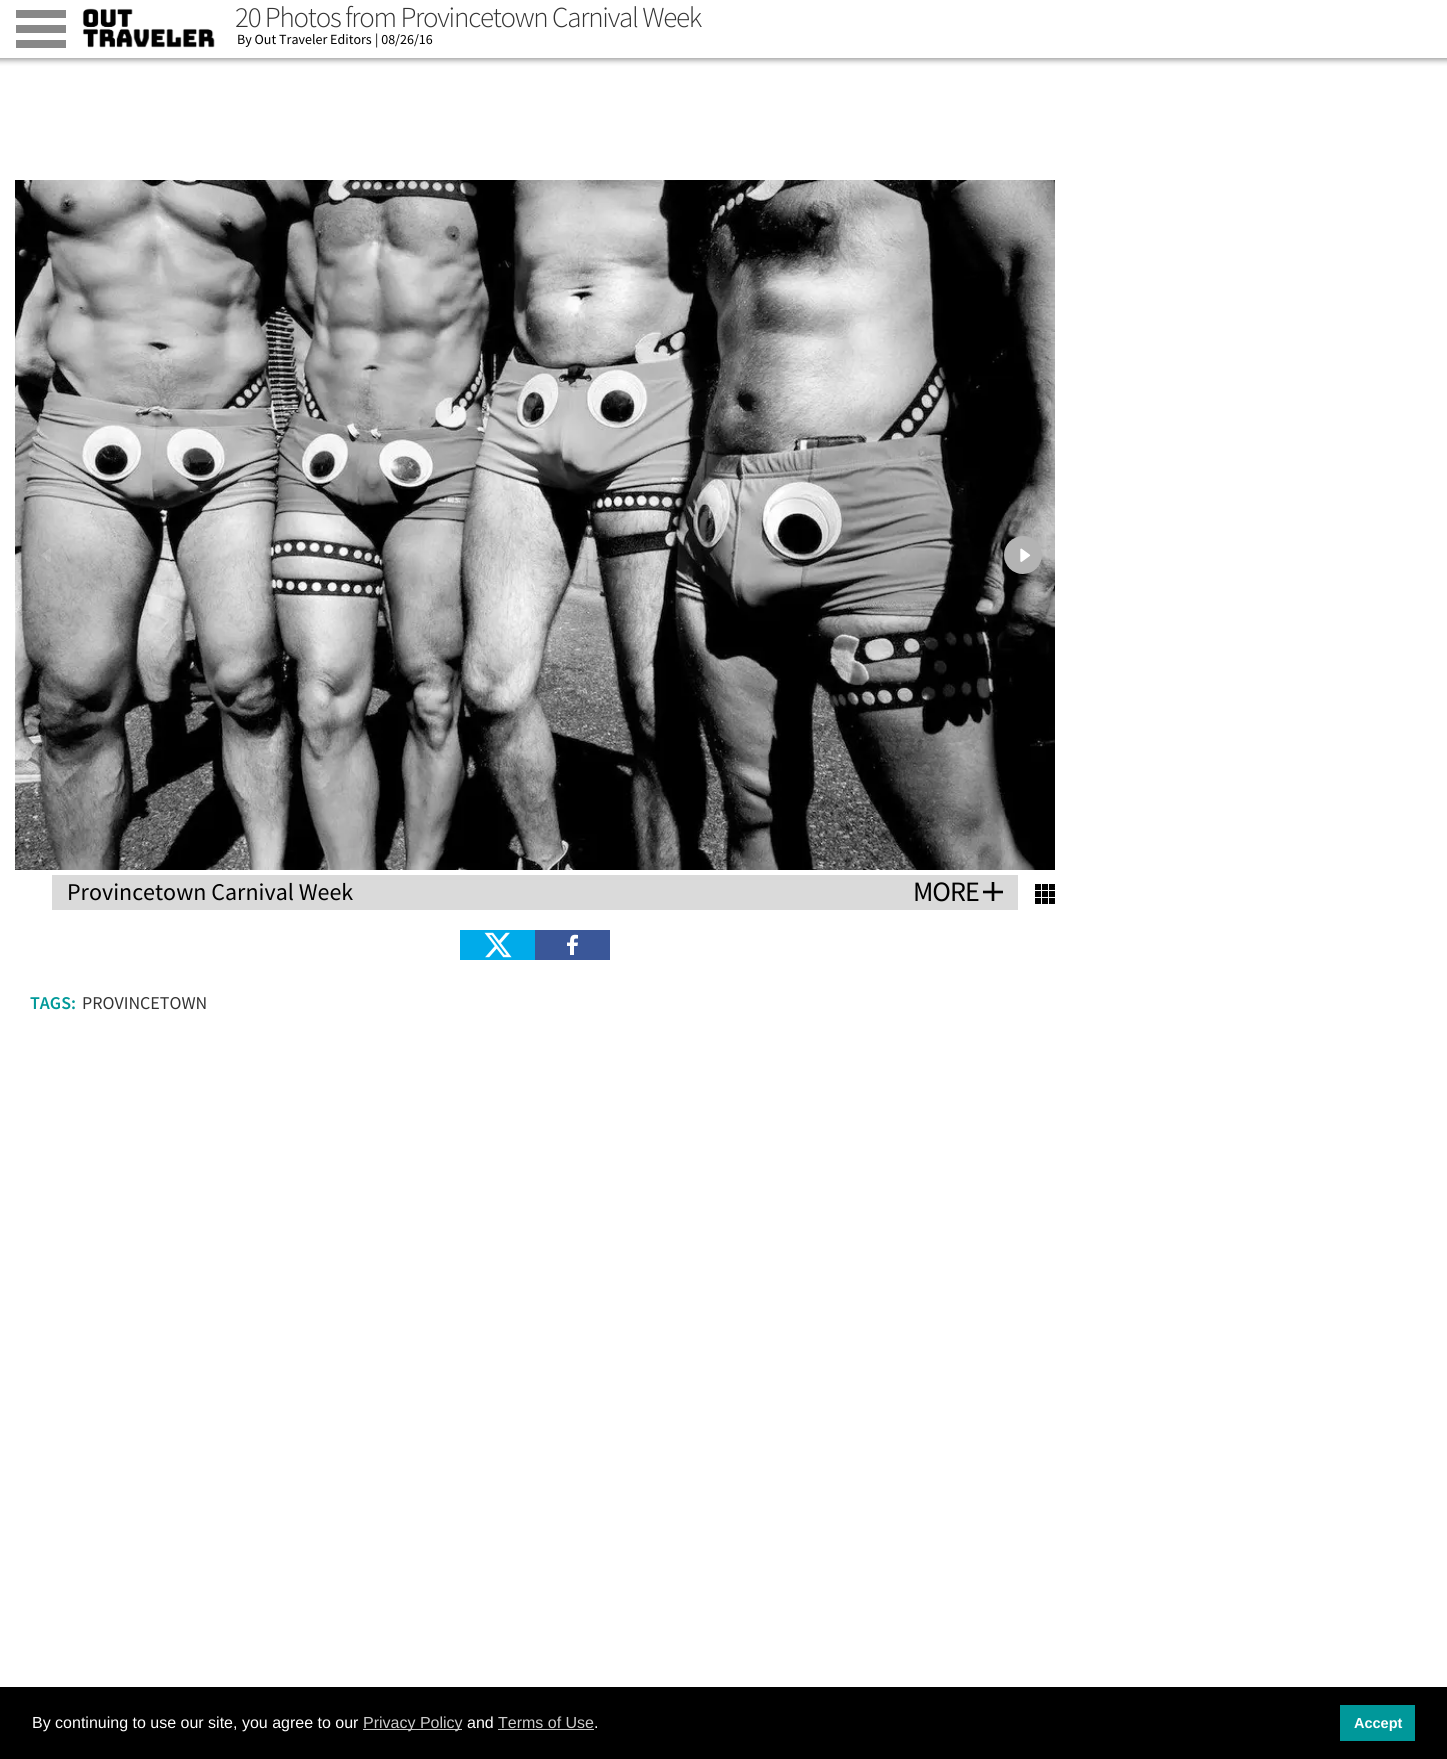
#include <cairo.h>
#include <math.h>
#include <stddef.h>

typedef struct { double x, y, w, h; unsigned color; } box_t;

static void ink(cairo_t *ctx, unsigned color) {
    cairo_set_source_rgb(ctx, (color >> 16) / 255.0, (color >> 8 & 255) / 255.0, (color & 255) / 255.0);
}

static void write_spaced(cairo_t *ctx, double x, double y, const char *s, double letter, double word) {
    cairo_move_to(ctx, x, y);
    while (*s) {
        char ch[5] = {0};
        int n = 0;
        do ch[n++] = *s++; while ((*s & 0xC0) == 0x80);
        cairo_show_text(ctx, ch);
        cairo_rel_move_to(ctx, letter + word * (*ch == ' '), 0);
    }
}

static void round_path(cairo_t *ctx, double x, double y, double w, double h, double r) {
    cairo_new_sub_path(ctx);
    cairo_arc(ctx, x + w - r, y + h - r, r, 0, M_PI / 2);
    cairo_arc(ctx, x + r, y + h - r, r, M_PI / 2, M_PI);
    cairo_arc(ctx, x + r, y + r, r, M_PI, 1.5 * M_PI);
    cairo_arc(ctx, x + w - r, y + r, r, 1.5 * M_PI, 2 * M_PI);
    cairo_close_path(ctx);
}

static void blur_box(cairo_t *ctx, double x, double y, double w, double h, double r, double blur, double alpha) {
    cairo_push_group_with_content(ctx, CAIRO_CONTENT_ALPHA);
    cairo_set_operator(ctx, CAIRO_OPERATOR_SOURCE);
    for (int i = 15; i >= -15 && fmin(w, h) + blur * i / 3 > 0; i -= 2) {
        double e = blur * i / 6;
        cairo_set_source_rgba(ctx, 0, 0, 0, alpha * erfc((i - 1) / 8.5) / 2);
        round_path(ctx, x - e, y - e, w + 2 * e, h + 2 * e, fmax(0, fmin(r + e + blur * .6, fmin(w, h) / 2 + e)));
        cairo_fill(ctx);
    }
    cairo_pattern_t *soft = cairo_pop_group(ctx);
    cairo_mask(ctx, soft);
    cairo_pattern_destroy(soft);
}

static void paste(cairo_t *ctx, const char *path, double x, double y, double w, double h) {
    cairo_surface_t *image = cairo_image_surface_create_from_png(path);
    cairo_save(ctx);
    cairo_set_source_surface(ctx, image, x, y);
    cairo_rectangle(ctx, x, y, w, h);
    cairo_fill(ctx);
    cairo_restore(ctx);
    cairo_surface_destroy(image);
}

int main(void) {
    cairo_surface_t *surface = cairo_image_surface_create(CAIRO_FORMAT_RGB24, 1447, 1759);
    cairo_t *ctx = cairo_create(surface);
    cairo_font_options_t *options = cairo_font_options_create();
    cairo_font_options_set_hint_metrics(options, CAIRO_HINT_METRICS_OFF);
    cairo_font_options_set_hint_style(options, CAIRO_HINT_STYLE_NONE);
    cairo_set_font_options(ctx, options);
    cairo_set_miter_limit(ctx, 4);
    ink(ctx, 0xFFFFFF);
    cairo_paint(ctx);
    cairo_save(ctx);
    cairo_rectangle(ctx, 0, 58, 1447, 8);
    cairo_clip(ctx);
    ink(ctx, 0x999999);
    blur_box(ctx, -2, -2, 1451, 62, 0, 3, 1);
    cairo_restore(ctx);
    {
        static const box_t items[] = {
            {16, 10, 50, 8, 0x888888},
            {16, 25, 50, 8, 0x888888},
            {16, 40, 50, 8, 0x888888},
        };
        for (size_t i = 0; i < sizeof items / sizeof *items; i++) {
            ink(ctx, items[i].color);
            cairo_rectangle(ctx, items[i].x, items[i].y, items[i].w, items[i].h);
            cairo_fill(ctx);
        }
    }
    paste(ctx, "media/1.png", 82, 8, 133, 40);
    cairo_select_font_face(ctx, "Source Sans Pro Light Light", CAIRO_FONT_SLANT_NORMAL, CAIRO_FONT_WEIGHT_NORMAL);
    cairo_set_font_size(ctx, 29);
    ink(ctx, 0x333333);
    write_spaced(ctx, 235, 27, "20 Photos from Provincetown Carnival Week", -1.25, 0);
    cairo_select_font_face(ctx, "Source Sans Pro", CAIRO_FONT_SLANT_NORMAL, CAIRO_FONT_WEIGHT_NORMAL);
    cairo_set_font_size(ctx, 14);
    ink(ctx, 0x000000);
    cairo_move_to(ctx, 237, 44);
    cairo_show_text(ctx, "By Out Traveler Editors");
    cairo_move_to(ctx, 375, 44);
    cairo_show_text(ctx, "| 08/26/16");
    paste(ctx, "media/4.png", 15, 180, 1040, 690);
    paste(ctx, "media/2.png", 29, 540, 33, 22);
    paste(ctx, "media/3.png", 1004, 536, 38, 38);
    ink(ctx, 0x00ABEA);
    cairo_rectangle(ctx, 460, 930, 75, 30);
    cairo_fill(ctx);
    paste(ctx, "media/5.png", 484, 932, 28, 26);
    ink(ctx, 0x3A5799);
    cairo_rectangle(ctx, 535, 930, 75, 30);
    cairo_fill(ctx);
    ink(ctx, 0xFFFFFF);
    cairo_set_fill_rule(ctx, CAIRO_FILL_RULE_EVEN_ODD);
    cairo_new_path(ctx);
    cairo_move_to(ctx, 578, 938.5);
    cairo_curve_to(ctx, 574, 938.5, 574, 938.5, 574, 942.5);
    cairo_line_to(ctx, 578, 942.5);
    cairo_line_to(ctx, 577.5, 946);
    cairo_line_to(ctx, 574, 946);
    cairo_line_to(ctx, 574, 955);
    cairo_line_to(ctx, 570, 955);
    cairo_line_to(ctx, 570, 946);
    cairo_line_to(ctx, 567, 946);
    cairo_line_to(ctx, 567, 942.5);
    cairo_line_to(ctx, 570, 942.5);
    cairo_curve_to(ctx, 570, 936, 571.5, 934, 578, 935);
    cairo_close_path(ctx);
    cairo_fill(ctx);
    ink(ctx, 0xDADADA);
    cairo_rectangle(ctx, 52, 875, 966, 35);
    cairo_fill(ctx);
    cairo_set_font_size(ctx, 24);
    ink(ctx, 0x000000);
    cairo_move_to(ctx, 67, 900);
    cairo_show_text(ctx, "Provincetown Carnival Week");
    paste(ctx, "media/6.png", 983, 882, 20, 19);
    cairo_set_font_size(ctx, 28);
    write_spaced(ctx, 913, 901, "MORE", -1, 0);
    paste(ctx, "media/7.png", 1035, 884, 20, 20);
    cairo_select_font_face(ctx, "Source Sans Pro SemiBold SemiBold", CAIRO_FONT_SLANT_NORMAL, CAIRO_FONT_WEIGHT_NORMAL);
    cairo_set_font_size(ctx, 18);
    ink(ctx, 0x009999);
    cairo_move_to(ctx, 30, 1009);
    cairo_show_text(ctx, "TAGS:");
    cairo_select_font_face(ctx, "Source Sans Pro", CAIRO_FONT_SLANT_NORMAL, CAIRO_FONT_WEIGHT_NORMAL);
    ink(ctx, 0x333333);
    cairo_move_to(ctx, 82, 1009);
    cairo_show_text(ctx, "PROVINCETOWN");
    ink(ctx, 0x000000);
    cairo_rectangle(ctx, 0, 1687, 1447, 72);
    cairo_fill(ctx);
    cairo_select_font_face(ctx, "Liberation Sans", CAIRO_FONT_SLANT_NORMAL, CAIRO_FONT_WEIGHT_NORMAL);
    cairo_set_font_size(ctx, 16);
    ink(ctx, 0xFFFFFF);
    cairo_move_to(ctx, 32, 1728);
    cairo_show_text(ctx, "By continuing to use our site, you agree to our");
    ink(ctx, 0xCCCCCC);
    cairo_rectangle(ctx, 363, 1729, 99, 1);
    cairo_fill(ctx);
    cairo_move_to(ctx, 363, 1728);
    cairo_show_text(ctx, "Privacy Policy");
    ink(ctx, 0xFFFFFF);
    cairo_move_to(ctx, 467, 1728);
    cairo_show_text(ctx, "and");
    ink(ctx, 0xCCCCCC);
    cairo_move_to(ctx, 498, 1728);
    cairo_show_text(ctx, "Terms of Use");
    cairo_rectangle(ctx, 498, 1729, 96, 1);
    cairo_fill(ctx);
    ink(ctx, 0xFFFFFF);
    cairo_move_to(ctx, 594, 1728);
    cairo_show_text(ctx, ".");
    ink(ctx, 0x00989A);
    cairo_rectangle(ctx, 1340, 1705, 75, 36);
    cairo_fill(ctx);
    cairo_select_font_face(ctx, "Liberation Sans", CAIRO_FONT_SLANT_NORMAL, CAIRO_FONT_WEIGHT_BOLD);
    cairo_set_font_size(ctx, 14.5);
    ink(ctx, 0xFFFFFF);
    cairo_move_to(ctx, 1354, 1728);
    cairo_show_text(ctx, "Accept");
    cairo_surface_write_to_png(surface, "image.png");
    cairo_font_options_destroy(options);
    cairo_destroy(ctx);
    cairo_surface_destroy(surface);
    return 0;
}
